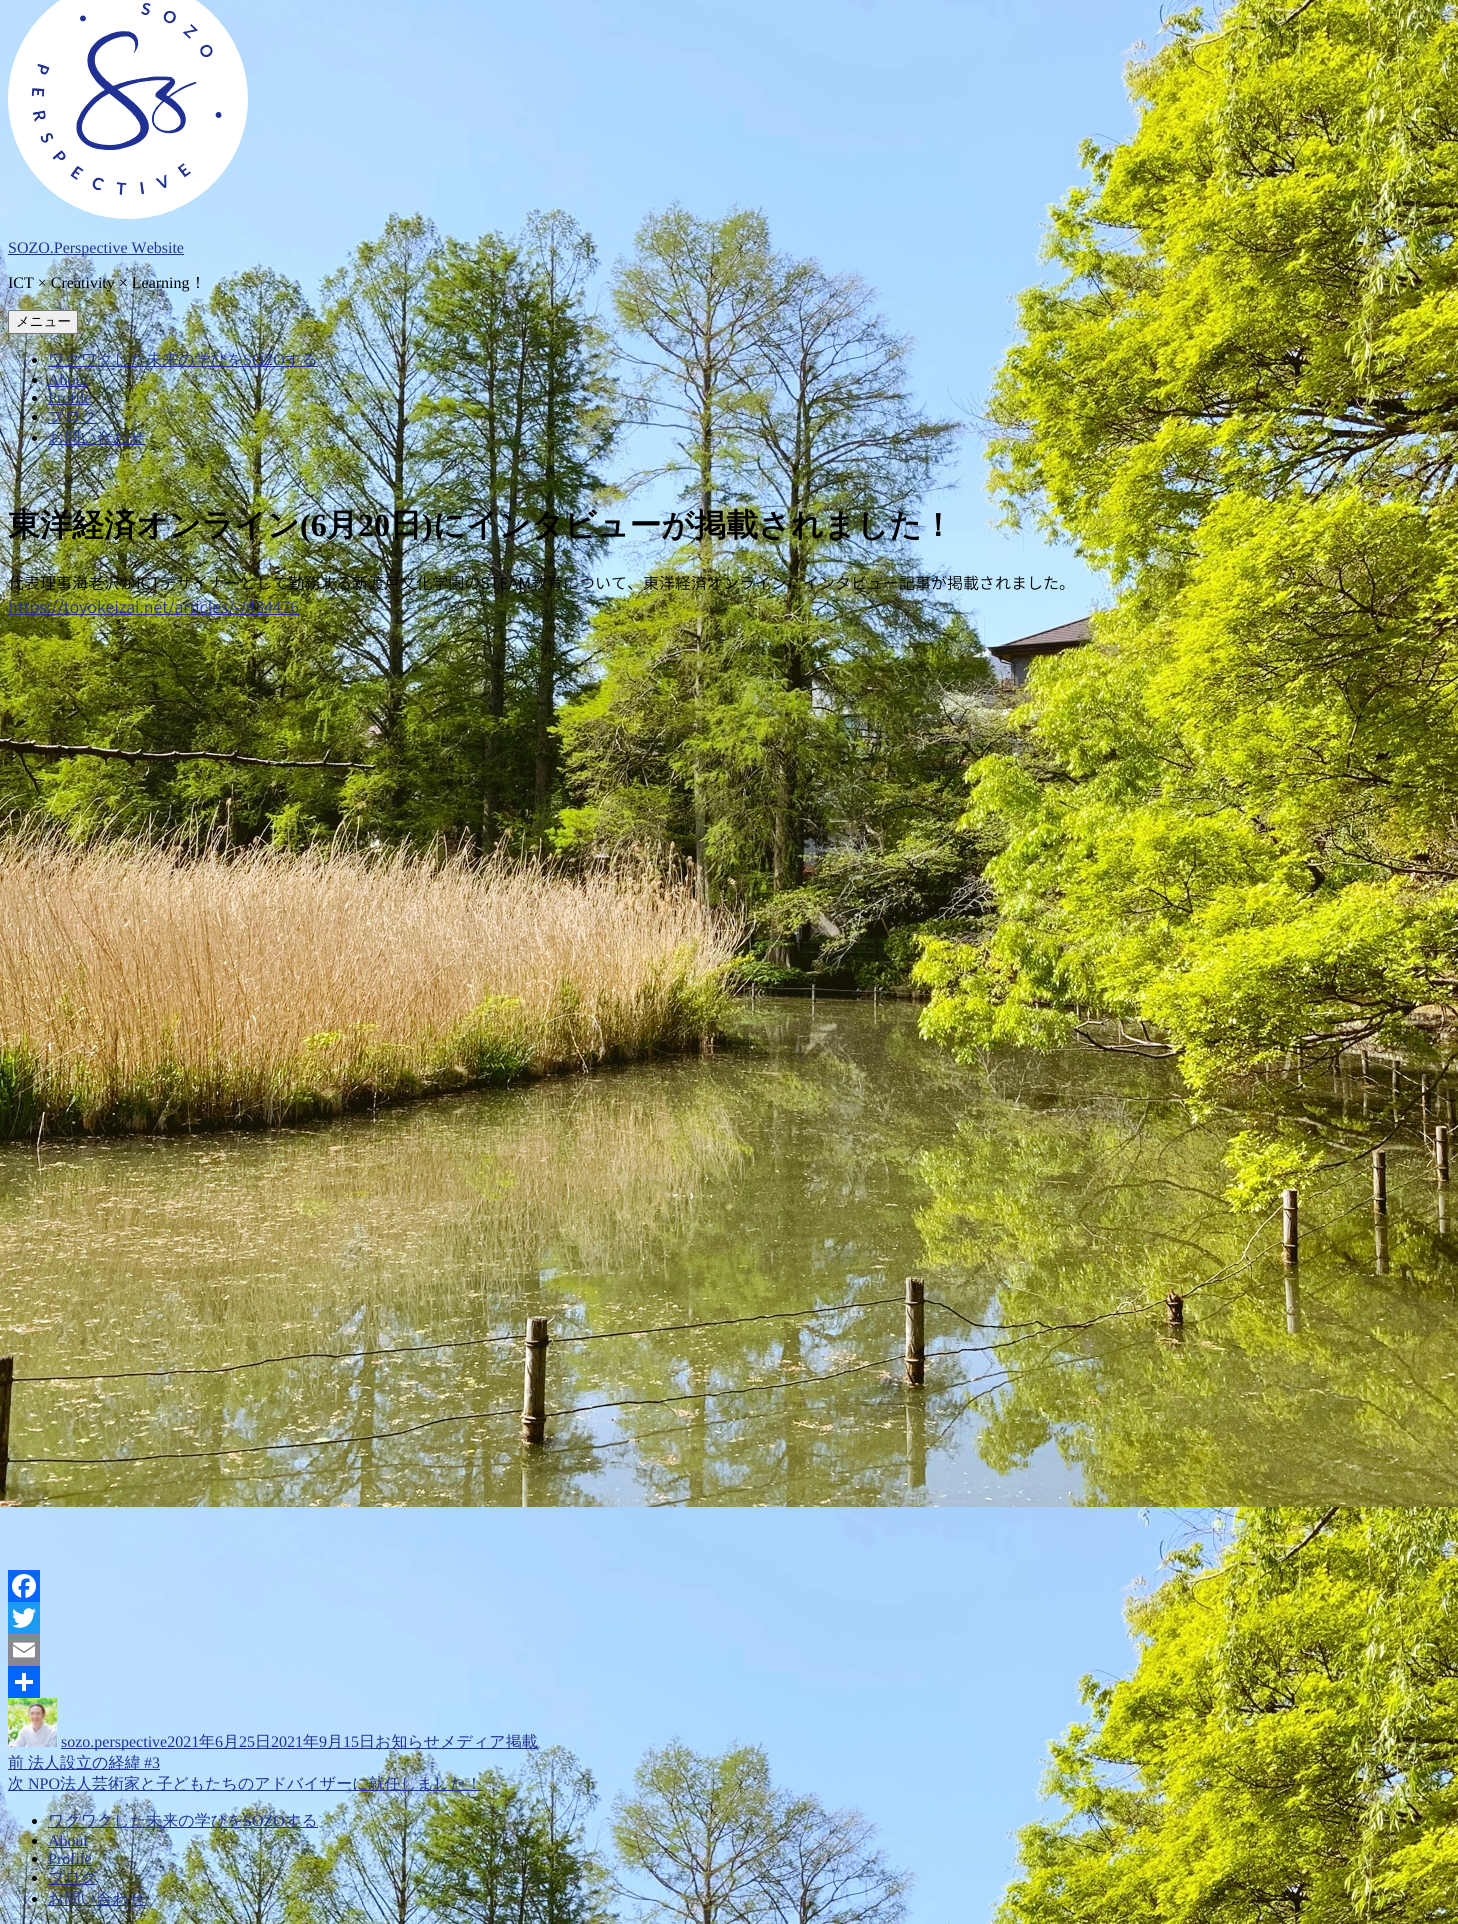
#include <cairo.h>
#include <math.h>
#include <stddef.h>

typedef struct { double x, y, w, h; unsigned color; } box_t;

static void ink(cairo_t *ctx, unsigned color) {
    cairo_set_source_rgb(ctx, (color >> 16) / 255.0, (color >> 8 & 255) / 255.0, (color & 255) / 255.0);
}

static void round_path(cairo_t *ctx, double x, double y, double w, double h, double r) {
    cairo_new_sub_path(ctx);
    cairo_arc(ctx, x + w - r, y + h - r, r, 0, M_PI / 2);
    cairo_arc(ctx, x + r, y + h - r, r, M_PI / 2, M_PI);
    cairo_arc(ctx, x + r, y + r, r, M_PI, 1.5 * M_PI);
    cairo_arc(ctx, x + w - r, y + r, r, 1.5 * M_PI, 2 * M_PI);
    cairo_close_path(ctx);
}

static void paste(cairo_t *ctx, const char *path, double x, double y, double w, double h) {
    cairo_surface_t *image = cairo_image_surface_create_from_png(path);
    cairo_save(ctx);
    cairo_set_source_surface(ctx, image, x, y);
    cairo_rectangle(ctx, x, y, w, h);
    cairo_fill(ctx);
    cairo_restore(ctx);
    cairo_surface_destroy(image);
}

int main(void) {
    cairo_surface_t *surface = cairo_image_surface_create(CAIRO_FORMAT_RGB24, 1458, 1924);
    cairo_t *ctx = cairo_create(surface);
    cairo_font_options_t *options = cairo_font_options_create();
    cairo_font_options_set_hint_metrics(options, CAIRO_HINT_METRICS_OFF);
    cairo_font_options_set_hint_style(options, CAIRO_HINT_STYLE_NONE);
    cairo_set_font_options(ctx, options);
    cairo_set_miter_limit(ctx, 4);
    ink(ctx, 0xFFFFFF);
    cairo_paint(ctx);
    paste(ctx, "media/1.png", 0, 0, 1458, 1924);
    paste(ctx, "media/2.png", 8, 0, 240, 219);
    ink(ctx, 0x213193);
    cairo_rectangle(ctx, 8, 254, 176, 1);
    cairo_fill(ctx);
    cairo_select_font_face(ctx, "Liberation Serif", CAIRO_FONT_SLANT_NORMAL, CAIRO_FONT_WEIGHT_NORMAL);
    cairo_set_font_size(ctx, 16);
    cairo_move_to(ctx, 8, 253);
    cairo_show_text(ctx, "SOZO.Perspective Website");
    ink(ctx, 0x000000);
    cairo_move_to(ctx, 8, 288);
    cairo_show_text(ctx, "ICT × Creativity × Learning");
    cairo_select_font_face(ctx, "WenQuanYi Zen Hei Medium", CAIRO_FONT_SLANT_NORMAL, CAIRO_FONT_WEIGHT_NORMAL);
    cairo_move_to(ctx, 190, 288);
    cairo_show_text(ctx, "！");
    ink(ctx, 0xEFEFEF);
    round_path(ctx, 8.5, 310.5, 69, 23, 1.5);
    cairo_fill_preserve(ctx);
    ink(ctx, 0x767676);
    cairo_set_line_width(ctx, 1);
    cairo_stroke(ctx);
    cairo_set_font_size(ctx, 13.5);
    ink(ctx, 0x000000);
    cairo_move_to(ctx, 16, 326);
    cairo_show_text(ctx, "メニュー");
    cairo_new_path(ctx);
    cairo_arc(ctx, 34.5, 360.5, 2.5, 0, 2 * M_PI);
    cairo_fill(ctx);
    ink(ctx, 0x213193);
    cairo_rectangle(ctx, 48, 366, 270, 1);
    cairo_fill(ctx);
    cairo_set_font_size(ctx, 16);
    cairo_move_to(ctx, 48, 365);
    cairo_show_text(ctx, "ワクワクした未来の学びを");
    cairo_select_font_face(ctx, "Liberation Serif", CAIRO_FONT_SLANT_NORMAL, CAIRO_FONT_WEIGHT_NORMAL);
    cairo_move_to(ctx, 243, 365);
    cairo_show_text(ctx, "SOZO");
    cairo_select_font_face(ctx, "WenQuanYi Zen Hei Medium", CAIRO_FONT_SLANT_NORMAL, CAIRO_FONT_WEIGHT_NORMAL);
    cairo_move_to(ctx, 285, 365);
    cairo_show_text(ctx, "する");
    ink(ctx, 0x000000);
    cairo_new_path(ctx);
    cairo_arc(ctx, 34.5, 380.5, 2.5, 0, 2 * M_PI);
    cairo_fill(ctx);
    cairo_select_font_face(ctx, "Liberation Serif", CAIRO_FONT_SLANT_NORMAL, CAIRO_FONT_WEIGHT_NORMAL);
    ink(ctx, 0x213193);
    cairo_move_to(ctx, 48, 385);
    cairo_show_text(ctx, "About");
    cairo_rectangle(ctx, 48, 386, 40, 1);
    cairo_fill(ctx);
    ink(ctx, 0x000000);
    cairo_arc(ctx, 34.5, 398.5, 2.5, 0, 2 * M_PI);
    cairo_fill(ctx);
    ink(ctx, 0x213193);
    cairo_move_to(ctx, 48, 403);
    cairo_show_text(ctx, "Profile");
    cairo_rectangle(ctx, 48, 404, 44, 1);
    cairo_fill(ctx);
    ink(ctx, 0x000000);
    cairo_arc(ctx, 34.5, 417.5, 2.5, 0, 2 * M_PI);
    cairo_fill(ctx);
    ink(ctx, 0x213193);
    cairo_rectangle(ctx, 48, 423, 49, 1);
    cairo_fill(ctx);
    cairo_select_font_face(ctx, "WenQuanYi Zen Hei Medium", CAIRO_FONT_SLANT_NORMAL, CAIRO_FONT_WEIGHT_NORMAL);
    cairo_move_to(ctx, 48, 422);
    cairo_show_text(ctx, "ブログ");
    ink(ctx, 0x000000);
    cairo_new_path(ctx);
    cairo_arc(ctx, 34.5, 438.5, 2.5, 0, 2 * M_PI);
    cairo_fill(ctx);
    ink(ctx, 0x213193);
    cairo_rectangle(ctx, 48, 444, 98, 1);
    cairo_fill(ctx);
    cairo_move_to(ctx, 48, 443);
    cairo_show_text(ctx, "お問い合わせ");
    cairo_select_font_face(ctx, "WenQuanYi Zen Hei", CAIRO_FONT_SLANT_NORMAL, CAIRO_FONT_WEIGHT_BOLD);
    cairo_set_font_size(ctx, 32);
    ink(ctx, 0x000000);
    cairo_move_to(ctx, 8, 536);
    cairo_show_text(ctx, "東洋経済オンライン");
    cairo_select_font_face(ctx, "Liberation Serif", CAIRO_FONT_SLANT_NORMAL, CAIRO_FONT_WEIGHT_BOLD);
    cairo_move_to(ctx, 300, 536);
    cairo_show_text(ctx, "(6");
    cairo_select_font_face(ctx, "WenQuanYi Zen Hei", CAIRO_FONT_SLANT_NORMAL, CAIRO_FONT_WEIGHT_BOLD);
    cairo_move_to(ctx, 326, 536);
    cairo_show_text(ctx, "月");
    cairo_select_font_face(ctx, "Liberation Serif", CAIRO_FONT_SLANT_NORMAL, CAIRO_FONT_WEIGHT_BOLD);
    cairo_move_to(ctx, 358, 536);
    cairo_show_text(ctx, "20");
    cairo_select_font_face(ctx, "WenQuanYi Zen Hei", CAIRO_FONT_SLANT_NORMAL, CAIRO_FONT_WEIGHT_BOLD);
    cairo_move_to(ctx, 390, 536);
    cairo_show_text(ctx, "日");
    cairo_select_font_face(ctx, "Liberation Serif", CAIRO_FONT_SLANT_NORMAL, CAIRO_FONT_WEIGHT_BOLD);
    cairo_move_to(ctx, 422, 536);
    cairo_show_text(ctx, ")");
    cairo_select_font_face(ctx, "WenQuanYi Zen Hei", CAIRO_FONT_SLANT_NORMAL, CAIRO_FONT_WEIGHT_BOLD);
    cairo_move_to(ctx, 433, 536);
    cairo_show_text(ctx, "にインタビューが掲載されました！");
    cairo_select_font_face(ctx, "Noto Sans JP Light", CAIRO_FONT_SLANT_NORMAL, CAIRO_FONT_WEIGHT_NORMAL);
    cairo_set_font_size(ctx, 16);
    cairo_move_to(ctx, 8, 589);
    cairo_show_text(ctx, "代表理事海老沢がICTデザイナーとして勤務する新渡戸文化学園のSTEAM教育について、東洋経済オンラインにインタビュー記事が掲載されました。");
    ink(ctx, 0x213193);
    cairo_rectangle(ctx, 8, 614, 291, 1);
    cairo_fill(ctx);
    cairo_move_to(ctx, 8, 613);
    cairo_show_text(ctx, "https://toyokeizai.net/articles/-/434476");
    ink(ctx, 0x0866FF);
    cairo_rectangle(ctx, 8, 1570, 32, 32);
    cairo_fill(ctx);
    paste(ctx, "media/3.png", 12, 1574, 24, 24);
    ink(ctx, 0x1D9BF0);
    cairo_rectangle(ctx, 8, 1602, 32, 32);
    cairo_fill(ctx);
    paste(ctx, "media/4.png", 12, 1608, 24, 20);
    ink(ctx, 0x888990);
    cairo_rectangle(ctx, 8, 1634, 32, 32);
    cairo_fill(ctx);
    paste(ctx, "media/5.png", 13, 1642, 22, 16);
    {
        static const box_t items[] = {
            {8, 1666, 32, 32, 0x0166FF},
            {22, 1673, 4, 18, 0xFFFFFF},
            {15, 1680, 18, 4, 0xFFFFFF},
        };
        for (size_t i = 0; i < sizeof items / sizeof *items; i++) {
            ink(ctx, items[i].color);
            cairo_rectangle(ctx, items[i].x, items[i].y, items[i].w, items[i].h);
            cairo_fill(ctx);
        }
    }
    paste(ctx, "media/6.png", 8, 1698, 49, 49);
    ink(ctx, 0x213193);
    cairo_rectangle(ctx, 61, 1748, 477, 1);
    cairo_fill(ctx);
    cairo_select_font_face(ctx, "Liberation Serif", CAIRO_FONT_SLANT_NORMAL, CAIRO_FONT_WEIGHT_NORMAL);
    cairo_move_to(ctx, 61, 1747);
    cairo_show_text(ctx, "sozo.perspective2021");
    cairo_select_font_face(ctx, "WenQuanYi Zen Hei Medium", CAIRO_FONT_SLANT_NORMAL, CAIRO_FONT_WEIGHT_NORMAL);
    cairo_move_to(ctx, 199, 1747);
    cairo_show_text(ctx, "年");
    cairo_select_font_face(ctx, "Liberation Serif", CAIRO_FONT_SLANT_NORMAL, CAIRO_FONT_WEIGHT_NORMAL);
    cairo_move_to(ctx, 215, 1747);
    cairo_show_text(ctx, "6");
    cairo_select_font_face(ctx, "WenQuanYi Zen Hei Medium", CAIRO_FONT_SLANT_NORMAL, CAIRO_FONT_WEIGHT_NORMAL);
    cairo_move_to(ctx, 223, 1747);
    cairo_show_text(ctx, "月");
    cairo_select_font_face(ctx, "Liberation Serif", CAIRO_FONT_SLANT_NORMAL, CAIRO_FONT_WEIGHT_NORMAL);
    cairo_move_to(ctx, 239, 1747);
    cairo_show_text(ctx, "25");
    cairo_select_font_face(ctx, "WenQuanYi Zen Hei Medium", CAIRO_FONT_SLANT_NORMAL, CAIRO_FONT_WEIGHT_NORMAL);
    cairo_move_to(ctx, 255, 1747);
    cairo_show_text(ctx, "日");
    cairo_select_font_face(ctx, "Liberation Serif", CAIRO_FONT_SLANT_NORMAL, CAIRO_FONT_WEIGHT_NORMAL);
    cairo_move_to(ctx, 271, 1747);
    cairo_show_text(ctx, "2021");
    cairo_select_font_face(ctx, "WenQuanYi Zen Hei Medium", CAIRO_FONT_SLANT_NORMAL, CAIRO_FONT_WEIGHT_NORMAL);
    cairo_move_to(ctx, 303, 1747);
    cairo_show_text(ctx, "年");
    cairo_select_font_face(ctx, "Liberation Serif", CAIRO_FONT_SLANT_NORMAL, CAIRO_FONT_WEIGHT_NORMAL);
    cairo_move_to(ctx, 319, 1747);
    cairo_show_text(ctx, "9");
    cairo_select_font_face(ctx, "WenQuanYi Zen Hei Medium", CAIRO_FONT_SLANT_NORMAL, CAIRO_FONT_WEIGHT_NORMAL);
    cairo_move_to(ctx, 327, 1747);
    cairo_show_text(ctx, "月");
    cairo_select_font_face(ctx, "Liberation Serif", CAIRO_FONT_SLANT_NORMAL, CAIRO_FONT_WEIGHT_NORMAL);
    cairo_move_to(ctx, 343, 1747);
    cairo_show_text(ctx, "15");
    cairo_select_font_face(ctx, "WenQuanYi Zen Hei Medium", CAIRO_FONT_SLANT_NORMAL, CAIRO_FONT_WEIGHT_NORMAL);
    cairo_move_to(ctx, 359, 1747);
    cairo_show_text(ctx, "日お知らせメディア掲載");
    cairo_rectangle(ctx, 8, 1769, 152, 1);
    cairo_fill(ctx);
    cairo_move_to(ctx, 8, 1768);
    cairo_show_text(ctx, "前");
    cairo_move_to(ctx, 28, 1768);
    cairo_show_text(ctx, "法人設立の経緯");
    cairo_select_font_face(ctx, "Liberation Serif", CAIRO_FONT_SLANT_NORMAL, CAIRO_FONT_WEIGHT_NORMAL);
    cairo_move_to(ctx, 144, 1768);
    cairo_show_text(ctx, "#3");
    cairo_rectangle(ctx, 8, 1790, 474, 1);
    cairo_fill(ctx);
    cairo_select_font_face(ctx, "WenQuanYi Zen Hei Medium", CAIRO_FONT_SLANT_NORMAL, CAIRO_FONT_WEIGHT_NORMAL);
    cairo_move_to(ctx, 8, 1789);
    cairo_show_text(ctx, "次");
    cairo_select_font_face(ctx, "Liberation Serif", CAIRO_FONT_SLANT_NORMAL, CAIRO_FONT_WEIGHT_NORMAL);
    cairo_move_to(ctx, 28, 1789);
    cairo_show_text(ctx, "NPO");
    cairo_select_font_face(ctx, "WenQuanYi Zen Hei Medium", CAIRO_FONT_SLANT_NORMAL, CAIRO_FONT_WEIGHT_NORMAL);
    cairo_move_to(ctx, 60, 1789);
    cairo_show_text(ctx, "法人芸術家と子どもたちのアドバイザーに就任しました！");
    ink(ctx, 0x000000);
    cairo_new_path(ctx);
    cairo_arc(ctx, 34.5, 1821.5, 2.5, 0, 2 * M_PI);
    cairo_fill(ctx);
    ink(ctx, 0x213193);
    cairo_rectangle(ctx, 48, 1827, 270, 1);
    cairo_fill(ctx);
    cairo_move_to(ctx, 48, 1826);
    cairo_show_text(ctx, "ワクワクした未来の学びを");
    cairo_select_font_face(ctx, "Liberation Serif", CAIRO_FONT_SLANT_NORMAL, CAIRO_FONT_WEIGHT_NORMAL);
    cairo_move_to(ctx, 243, 1826);
    cairo_show_text(ctx, "SOZO");
    cairo_select_font_face(ctx, "WenQuanYi Zen Hei Medium", CAIRO_FONT_SLANT_NORMAL, CAIRO_FONT_WEIGHT_NORMAL);
    cairo_move_to(ctx, 285, 1826);
    cairo_show_text(ctx, "する");
    ink(ctx, 0x000000);
    cairo_new_path(ctx);
    cairo_arc(ctx, 34.5, 1841.5, 2.5, 0, 2 * M_PI);
    cairo_fill(ctx);
    cairo_select_font_face(ctx, "Liberation Serif", CAIRO_FONT_SLANT_NORMAL, CAIRO_FONT_WEIGHT_NORMAL);
    ink(ctx, 0x213193);
    cairo_move_to(ctx, 48, 1846);
    cairo_show_text(ctx, "About");
    cairo_rectangle(ctx, 48, 1847, 40, 1);
    cairo_fill(ctx);
    ink(ctx, 0x000000);
    cairo_arc(ctx, 34.5, 1859.5, 2.5, 0, 2 * M_PI);
    cairo_fill(ctx);
    ink(ctx, 0x213193);
    cairo_move_to(ctx, 48, 1864);
    cairo_show_text(ctx, "Profile");
    cairo_rectangle(ctx, 48, 1865, 44, 1);
    cairo_fill(ctx);
    ink(ctx, 0x000000);
    cairo_arc(ctx, 34.5, 1878.5, 2.5, 0, 2 * M_PI);
    cairo_fill(ctx);
    ink(ctx, 0x213193);
    cairo_rectangle(ctx, 48, 1884, 49, 1);
    cairo_fill(ctx);
    cairo_select_font_face(ctx, "WenQuanYi Zen Hei Medium", CAIRO_FONT_SLANT_NORMAL, CAIRO_FONT_WEIGHT_NORMAL);
    cairo_move_to(ctx, 48, 1883);
    cairo_show_text(ctx, "ブログ");
    ink(ctx, 0x000000);
    cairo_new_path(ctx);
    cairo_arc(ctx, 34.5, 1899.5, 2.5, 0, 2 * M_PI);
    cairo_fill(ctx);
    ink(ctx, 0x213193);
    cairo_rectangle(ctx, 48, 1905, 98, 1);
    cairo_fill(ctx);
    cairo_move_to(ctx, 48, 1904);
    cairo_show_text(ctx, "お問い合わせ");
    cairo_surface_write_to_png(surface, "image.png");
    cairo_font_options_destroy(options);
    cairo_destroy(ctx);
    cairo_surface_destroy(surface);
    return 0;
}
